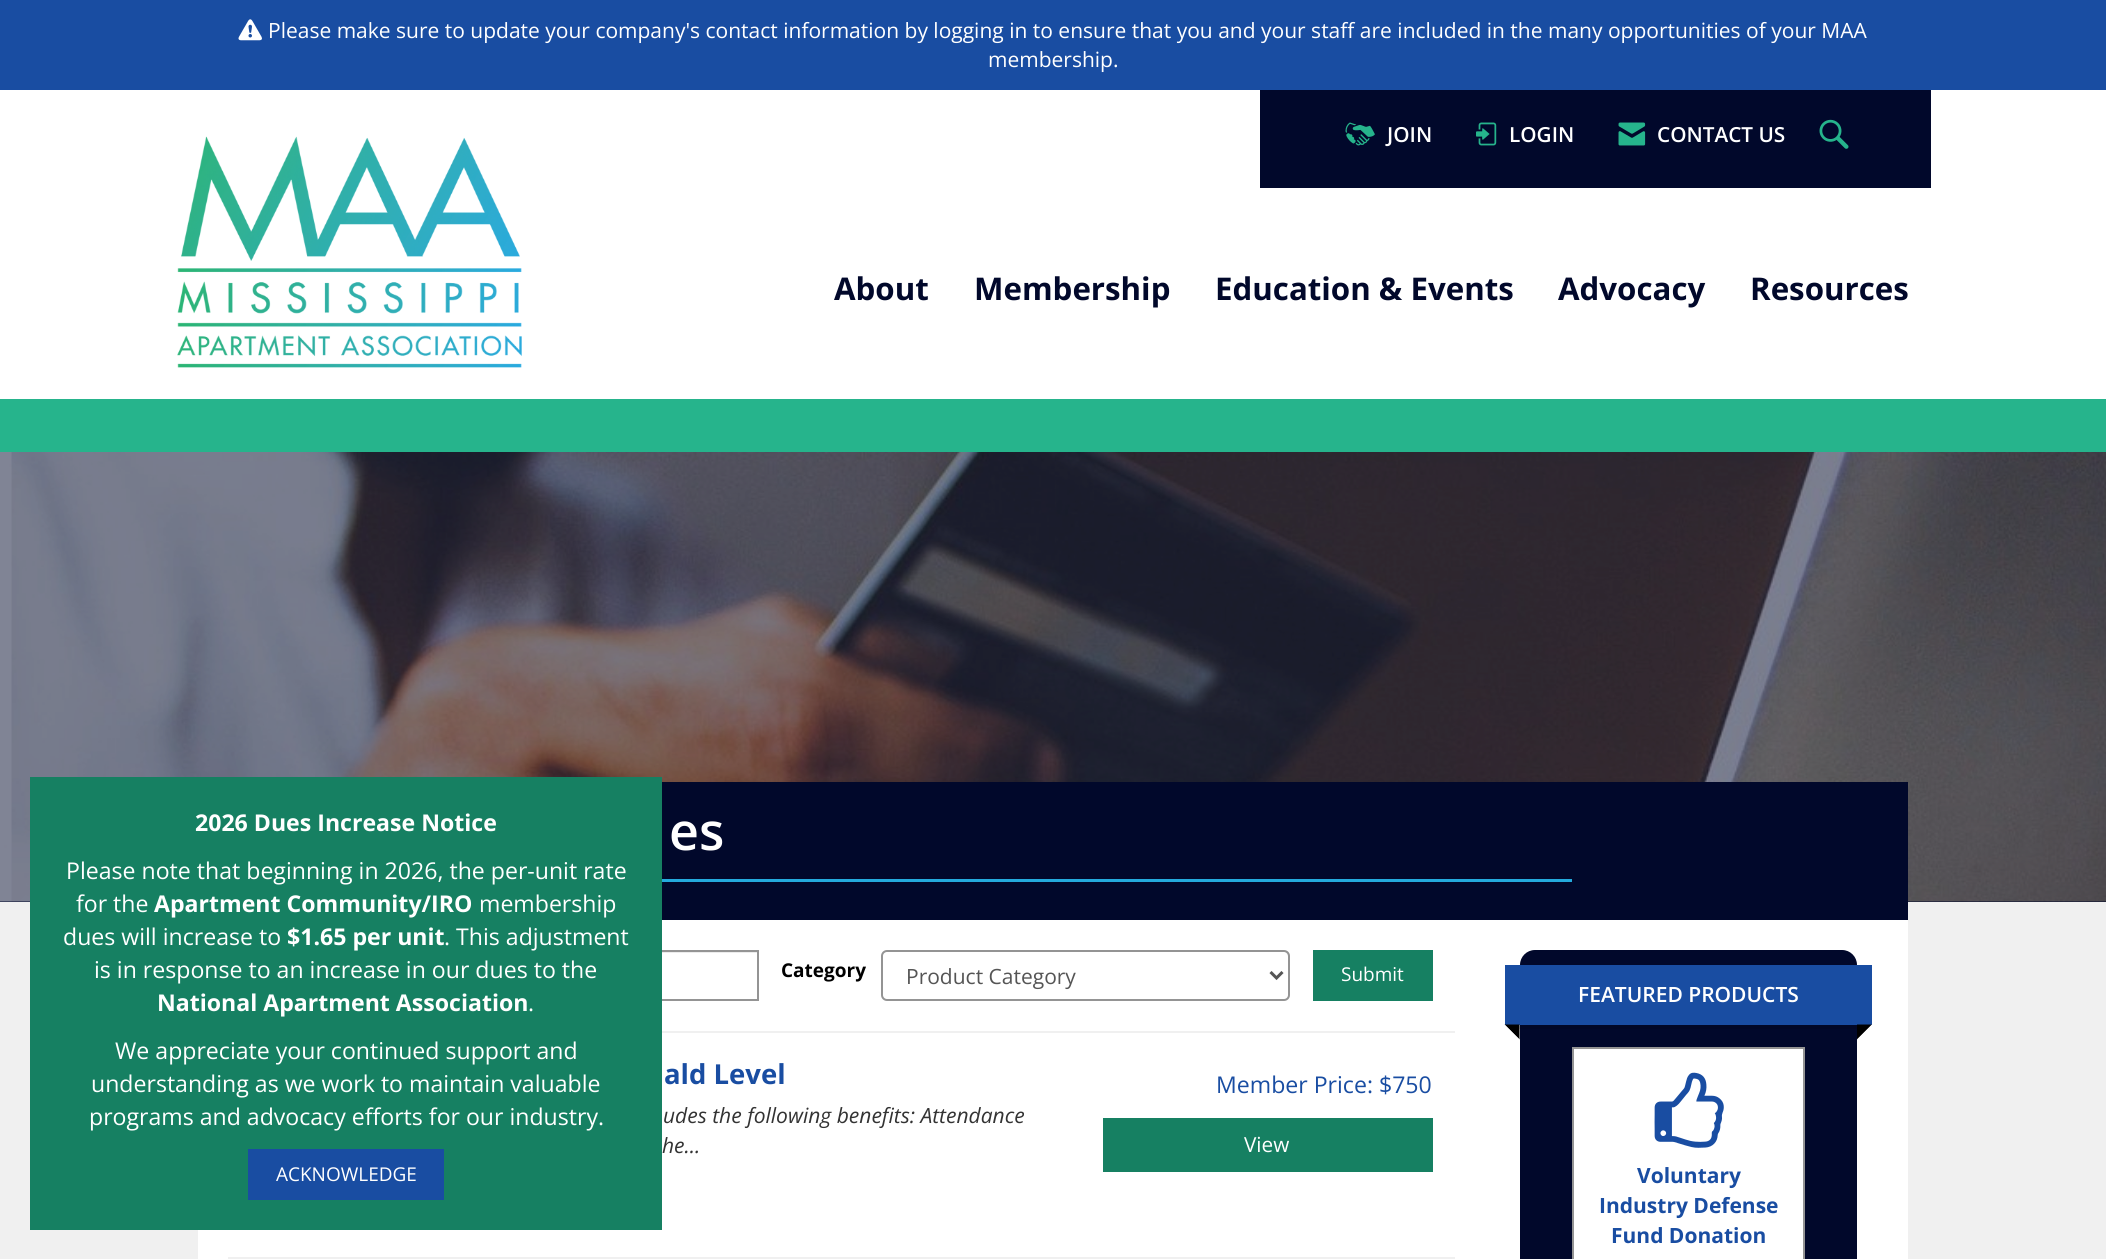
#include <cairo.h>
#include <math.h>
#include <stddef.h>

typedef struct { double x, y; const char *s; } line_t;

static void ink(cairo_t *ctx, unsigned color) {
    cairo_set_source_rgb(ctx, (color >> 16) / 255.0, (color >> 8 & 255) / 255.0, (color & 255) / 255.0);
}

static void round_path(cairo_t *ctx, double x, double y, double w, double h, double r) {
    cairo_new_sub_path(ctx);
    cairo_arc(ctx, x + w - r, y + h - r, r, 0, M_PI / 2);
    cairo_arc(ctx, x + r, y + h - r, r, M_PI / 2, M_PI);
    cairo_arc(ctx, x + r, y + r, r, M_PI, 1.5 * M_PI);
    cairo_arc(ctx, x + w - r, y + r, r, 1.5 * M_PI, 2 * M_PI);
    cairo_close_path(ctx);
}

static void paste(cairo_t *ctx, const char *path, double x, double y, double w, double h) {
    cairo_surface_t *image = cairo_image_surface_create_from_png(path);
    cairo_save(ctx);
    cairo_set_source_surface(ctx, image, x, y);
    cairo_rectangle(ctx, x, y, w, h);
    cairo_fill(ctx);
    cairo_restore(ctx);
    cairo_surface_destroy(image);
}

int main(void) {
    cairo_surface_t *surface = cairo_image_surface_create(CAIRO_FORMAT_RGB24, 2106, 1259);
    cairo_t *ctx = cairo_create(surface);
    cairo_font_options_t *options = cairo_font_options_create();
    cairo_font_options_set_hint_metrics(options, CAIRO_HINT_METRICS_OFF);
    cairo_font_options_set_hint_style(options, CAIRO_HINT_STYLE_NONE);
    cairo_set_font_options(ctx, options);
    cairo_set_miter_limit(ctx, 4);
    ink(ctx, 0xF0F0F0);
    cairo_paint(ctx);
    ink(ctx, 0x194DA2);
    cairo_rectangle(ctx, 0, 0, 2106, 90);
    cairo_fill(ctx);
    paste(ctx, "media/1.png", 238, 19, 24, 22);
    cairo_select_font_face(ctx, "Open Sans", CAIRO_FONT_SLANT_NORMAL, CAIRO_FONT_WEIGHT_NORMAL);
    cairo_set_font_size(ctx, 21);
    ink(ctx, 0xFFFFFF);
    cairo_move_to(ctx, 268, 38);
    cairo_show_text(ctx, "Please make sure to update your company's contact information by logging in to ensure that you and your staff are included in the many opportunities of your MAA");
    cairo_move_to(ctx, 988, 67);
    cairo_show_text(ctx, "membership.");
    cairo_rectangle(ctx, 0, 90, 2106, 309);
    cairo_fill(ctx);
    ink(ctx, 0x01082B);
    cairo_rectangle(ctx, 1260, 90, 671, 98);
    cairo_fill(ctx);
    paste(ctx, "media/2.png", 1345, 122, 30, 24);
    cairo_select_font_face(ctx, "Open Sans SemiBold", CAIRO_FONT_SLANT_NORMAL, CAIRO_FONT_WEIGHT_NORMAL);
    cairo_set_font_size(ctx, 20.75);
    ink(ctx, 0xFFFFFF);
    cairo_move_to(ctx, 1387, 142);
    cairo_show_text(ctx, "JOIN");
    paste(ctx, "media/3.png", 1476, 122, 21, 24);
    cairo_move_to(ctx, 1509, 142);
    cairo_show_text(ctx, "LOGIN");
    paste(ctx, "media/4.png", 1618, 122, 28, 24);
    cairo_move_to(ctx, 1657, 142);
    cairo_show_text(ctx, "CONTACT US");
    paste(ctx, "media/5.png", 1819, 119, 30, 30);
    paste(ctx, "media/6.png", 177, 136, 345, 232);
    cairo_select_font_face(ctx, "Open Sans", CAIRO_FONT_SLANT_NORMAL, CAIRO_FONT_WEIGHT_BOLD);
    cairo_set_font_size(ctx, 31.25);
    ink(ctx, 0x01082B);
    {
        static const line_t items[] = {
            {834, 300, "About"},
            {974, 300, "Membership"},
            {1215, 300, "Education & Events"},
            {1558, 300, "Advocacy"},
            {1750, 300, "Resources"},
        };
        for (size_t i = 0; i < sizeof items / sizeof *items; i++) {
            cairo_move_to(ctx, items[i].x, items[i].y);
            cairo_show_text(ctx, items[i].s);
        }
    }
    ink(ctx, 0x26B48C);
    cairo_rectangle(ctx, 0, 399, 2106, 53);
    cairo_fill(ctx);
    ink(ctx, 0x01082B);
    cairo_rectangle(ctx, 0, 901, 2106, 1);
    cairo_fill(ctx);
    paste(ctx, "media/7.png", 0, 452, 2106, 450);
    ink(ctx, 0xFFFFFF);
    cairo_rectangle(ctx, 198, 920, 1710, 339);
    cairo_fill(ctx);
    ink(ctx, 0xECECEC);
    cairo_rectangle(ctx, 662, 952, 96, 1);
    cairo_fill(ctx);
    cairo_rectangle(ctx, 330, 951, 428, 49);
    ink(ctx, 0x949494);
    cairo_stroke(ctx);
    ink(ctx, 0x168062);
    cairo_rectangle(ctx, 30, 777, 632, 453);
    cairo_fill(ctx);
    cairo_set_font_size(ctx, 23.1);
    ink(ctx, 0xFFFFFF);
    cairo_move_to(ctx, 195, 831);
    cairo_show_text(ctx, "2026 Dues Increase Notice");
    cairo_select_font_face(ctx, "Open Sans", CAIRO_FONT_SLANT_NORMAL, CAIRO_FONT_WEIGHT_NORMAL);
    cairo_move_to(ctx, 66, 879);
    cairo_show_text(ctx, "Please note that beginning in 2026, the per-unit rate");
    cairo_move_to(ctx, 76, 912);
    cairo_show_text(ctx, "for the");
    cairo_select_font_face(ctx, "Open Sans", CAIRO_FONT_SLANT_NORMAL, CAIRO_FONT_WEIGHT_BOLD);
    cairo_move_to(ctx, 154, 912);
    cairo_show_text(ctx, "Apartment Community/IRO");
    cairo_select_font_face(ctx, "Open Sans", CAIRO_FONT_SLANT_NORMAL, CAIRO_FONT_WEIGHT_NORMAL);
    cairo_move_to(ctx, 479, 912);
    cairo_show_text(ctx, "membership");
    cairo_move_to(ctx, 63, 945);
    cairo_show_text(ctx, "dues will increase to");
    cairo_select_font_face(ctx, "Open Sans", CAIRO_FONT_SLANT_NORMAL, CAIRO_FONT_WEIGHT_BOLD);
    cairo_move_to(ctx, 287, 945);
    cairo_show_text(ctx, "$1.65 per unit");
    cairo_select_font_face(ctx, "Open Sans", CAIRO_FONT_SLANT_NORMAL, CAIRO_FONT_WEIGHT_NORMAL);
    cairo_move_to(ctx, 444, 945);
    cairo_show_text(ctx, ". This adjustment");
    cairo_move_to(ctx, 94, 978);
    cairo_show_text(ctx, "is in response to an increase in our dues to the");
    cairo_select_font_face(ctx, "Open Sans", CAIRO_FONT_SLANT_NORMAL, CAIRO_FONT_WEIGHT_BOLD);
    cairo_move_to(ctx, 157, 1011);
    cairo_show_text(ctx, "National Apartment Association");
    cairo_select_font_face(ctx, "Open Sans", CAIRO_FONT_SLANT_NORMAL, CAIRO_FONT_WEIGHT_NORMAL);
    {
        static const line_t items[] = {
            {528, 1011, "."},
            {115, 1059, "We appreciate your continued support and"},
            {91, 1092, "understanding as we work to maintain valuable"},
            {89, 1125, "programs and advocacy efforts for our industry."},
        };
        for (size_t i = 0; i < sizeof items / sizeof *items; i++) {
            cairo_move_to(ctx, items[i].x, items[i].y);
            cairo_show_text(ctx, items[i].s);
        }
    }
    ink(ctx, 0x194DA2);
    cairo_rectangle(ctx, 248, 1149, 196, 51);
    cairo_fill(ctx);
    cairo_set_font_size(ctx, 19);
    ink(ctx, 0xFFFFFF);
    cairo_move_to(ctx, 276, 1181);
    cairo_show_text(ctx, "ACKNOWLEDGE");
    ink(ctx, 0x01082B);
    cairo_rectangle(ctx, 662, 782, 1246, 138);
    cairo_fill(ctx);
    ink(ctx, 0x24AADD);
    cairo_rectangle(ctx, 662, 879, 910, 3);
    cairo_fill(ctx);
    cairo_select_font_face(ctx, "Open Sans SemiBold", CAIRO_FONT_SLANT_NORMAL, CAIRO_FONT_WEIGHT_NORMAL);
    cairo_set_font_size(ctx, 52);
    ink(ctx, 0xFFFFFF);
    cairo_move_to(ctx, 669, 850);
    cairo_show_text(ctx, "es");
    ink(ctx, 0xE3E3E3);
    cairo_rectangle(ctx, 1505, 1025, 367, 4);
    cairo_fill(ctx);
    cairo_select_font_face(ctx, "Open Sans", CAIRO_FONT_SLANT_NORMAL, CAIRO_FONT_WEIGHT_BOLD);
    cairo_set_font_size(ctx, 19);
    ink(ctx, 0x000000);
    cairo_move_to(ctx, 781, 977);
    cairo_show_text(ctx, "Category");
    ink(ctx, 0xECECEC);
    cairo_new_path(ctx);
    cairo_move_to(ctx, 886, 952);
    cairo_line_to(ctx, 1284, 952);
    cairo_curve_to(ctx, 1286, 952, 1288, 955, 1288, 957);
    cairo_line_to(ctx, 1288, 997);
    cairo_curve_to(ctx, 1289, 996, 1289, 995, 1289, 994);
    cairo_line_to(ctx, 1289, 956);
    cairo_curve_to(ctx, 1289, 953, 1287, 951, 1284, 951);
    cairo_line_to(ctx, 887, 951);
    cairo_curve_to(ctx, 884, 951, 882, 953, 882, 956);
    cairo_line_to(ctx, 882, 957);
    cairo_curve_to(ctx, 882, 955, 884, 952, 886, 952);
    cairo_close_path(ctx);
    cairo_fill(ctx);
    round_path(ctx, 882, 951, 407, 49, 5);
    ink(ctx, 0x949494);
    cairo_stroke(ctx);
    cairo_new_path(ctx);
    cairo_move_to(ctx, 1270.5, 972);
    cairo_line_to(ctx, 1276.5, 978);
    cairo_line_to(ctx, 1282.5, 972);
    ink(ctx, 0x555555);
    cairo_set_line_width(ctx, 3);
    cairo_stroke(ctx);
    cairo_select_font_face(ctx, "Open Sans", CAIRO_FONT_SLANT_NORMAL, CAIRO_FONT_WEIGHT_NORMAL);
    cairo_set_font_size(ctx, 21);
    cairo_move_to(ctx, 906, 984);
    cairo_show_text(ctx, "Product Category");
    ink(ctx, 0x168062);
    cairo_rectangle(ctx, 1313, 950, 120, 51);
    cairo_fill(ctx);
    cairo_set_font_size(ctx, 19);
    ink(ctx, 0xFFFFFF);
    cairo_move_to(ctx, 1341, 981);
    cairo_show_text(ctx, "Submit");
    ink(ctx, 0xF0F0F0);
    cairo_rectangle(ctx, 662, 1031, 793, 2);
    cairo_fill(ctx);
    cairo_rectangle(ctx, 228, 1257, 1227, 2);
    cairo_fill(ctx);
    cairo_select_font_face(ctx, "Open Sans", CAIRO_FONT_SLANT_NORMAL, CAIRO_FONT_WEIGHT_BOLD);
    cairo_set_font_size(ctx, 27.5);
    ink(ctx, 0x194DA2);
    cairo_move_to(ctx, 664, 1084);
    cairo_show_text(ctx, "ald Level");
    cairo_select_font_face(ctx, "Open Sans", CAIRO_FONT_SLANT_ITALIC, CAIRO_FONT_WEIGHT_NORMAL);
    cairo_set_font_size(ctx, 21);
    ink(ctx, 0x333333);
    cairo_move_to(ctx, 663, 1123);
    cairo_show_text(ctx, "udes the following benefits: Attendance");
    cairo_move_to(ctx, 662, 1153);
    cairo_show_text(ctx, "he...");
    cairo_select_font_face(ctx, "Open Sans", CAIRO_FONT_SLANT_NORMAL, CAIRO_FONT_WEIGHT_NORMAL);
    cairo_set_font_size(ctx, 23.1);
    ink(ctx, 0x194DA2);
    cairo_move_to(ctx, 1216, 1093);
    cairo_show_text(ctx, "Member Price: $750");
    ink(ctx, 0x168062);
    cairo_rectangle(ctx, 1103, 1118, 330, 54);
    cairo_fill(ctx);
    cairo_set_font_size(ctx, 20.75);
    ink(ctx, 0xFFFFFF);
    cairo_move_to(ctx, 1244, 1152);
    cairo_show_text(ctx, "View");
    ink(ctx, 0x01082B);
    round_path(ctx, 1520, 950, 337, 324, 15);
    cairo_fill(ctx);
    ink(ctx, 0x010726);
    cairo_rectangle(ctx, 1520, 1025, 337, 4);
    cairo_fill(ctx);
    ink(ctx, 0x194DA2);
    cairo_rectangle(ctx, 1505, 965, 367, 60);
    cairo_fill(ctx);
    cairo_select_font_face(ctx, "Open Sans SemiBold", CAIRO_FONT_SLANT_NORMAL, CAIRO_FONT_WEIGHT_NORMAL);
    cairo_set_font_size(ctx, 21);
    ink(ctx, 0xFFFFFF);
    cairo_move_to(ctx, 1578, 1002);
    cairo_show_text(ctx, "FEATURED PRODUCTS");
    ink(ctx, 0x000000);
    cairo_new_path(ctx);
    cairo_move_to(ctx, 1504.5, 1024.5);
    cairo_line_to(ctx, 1519.5, 1024.5);
    cairo_line_to(ctx, 1519.5, 1039.5);
    cairo_close_path(ctx);
    cairo_fill(ctx);
    ink(ctx, 0xFFFFFF);
    cairo_new_path(ctx);
    cairo_move_to(ctx, 1504.5, 1039.5);
    cairo_line_to(ctx, 1504.5, 1024.5);
    cairo_line_to(ctx, 1519.5, 1039.5);
    cairo_close_path(ctx);
    cairo_fill(ctx);
    ink(ctx, 0x000000);
    cairo_new_path(ctx);
    cairo_move_to(ctx, 1857, 1024.5);
    cairo_line_to(ctx, 1872, 1024.5);
    cairo_line_to(ctx, 1857, 1039.5);
    cairo_close_path(ctx);
    cairo_fill(ctx);
    ink(ctx, 0xFFFFFF);
    cairo_new_path(ctx);
    cairo_move_to(ctx, 1872, 1024.5);
    cairo_line_to(ctx, 1872, 1039.5);
    cairo_line_to(ctx, 1857, 1039.5);
    cairo_close_path(ctx);
    cairo_fill(ctx);
    cairo_rectangle(ctx, 1573, 1048, 231, 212);
    cairo_fill_preserve(ctx);
    ink(ctx, 0x949494);
    cairo_set_line_width(ctx, 2);
    cairo_stroke(ctx);
    paste(ctx, "media/8.png", 1654, 1072, 70, 76);
    cairo_select_font_face(ctx, "Open Sans", CAIRO_FONT_SLANT_NORMAL, CAIRO_FONT_WEIGHT_BOLD);
    ink(ctx, 0x194DA2);
    {
        static const line_t items[] = {
            {1637, 1183, "Voluntary"},
            {1599, 1213, "Industry Defense"},
            {1611, 1243, "Fund Donation"},
        };
        for (size_t i = 0; i < sizeof items / sizeof *items; i++) {
            cairo_move_to(ctx, items[i].x, items[i].y);
            cairo_show_text(ctx, items[i].s);
        }
    }
    cairo_surface_write_to_png(surface, "image.png");
    cairo_font_options_destroy(options);
    cairo_destroy(ctx);
    cairo_surface_destroy(surface);
    return 0;
}
